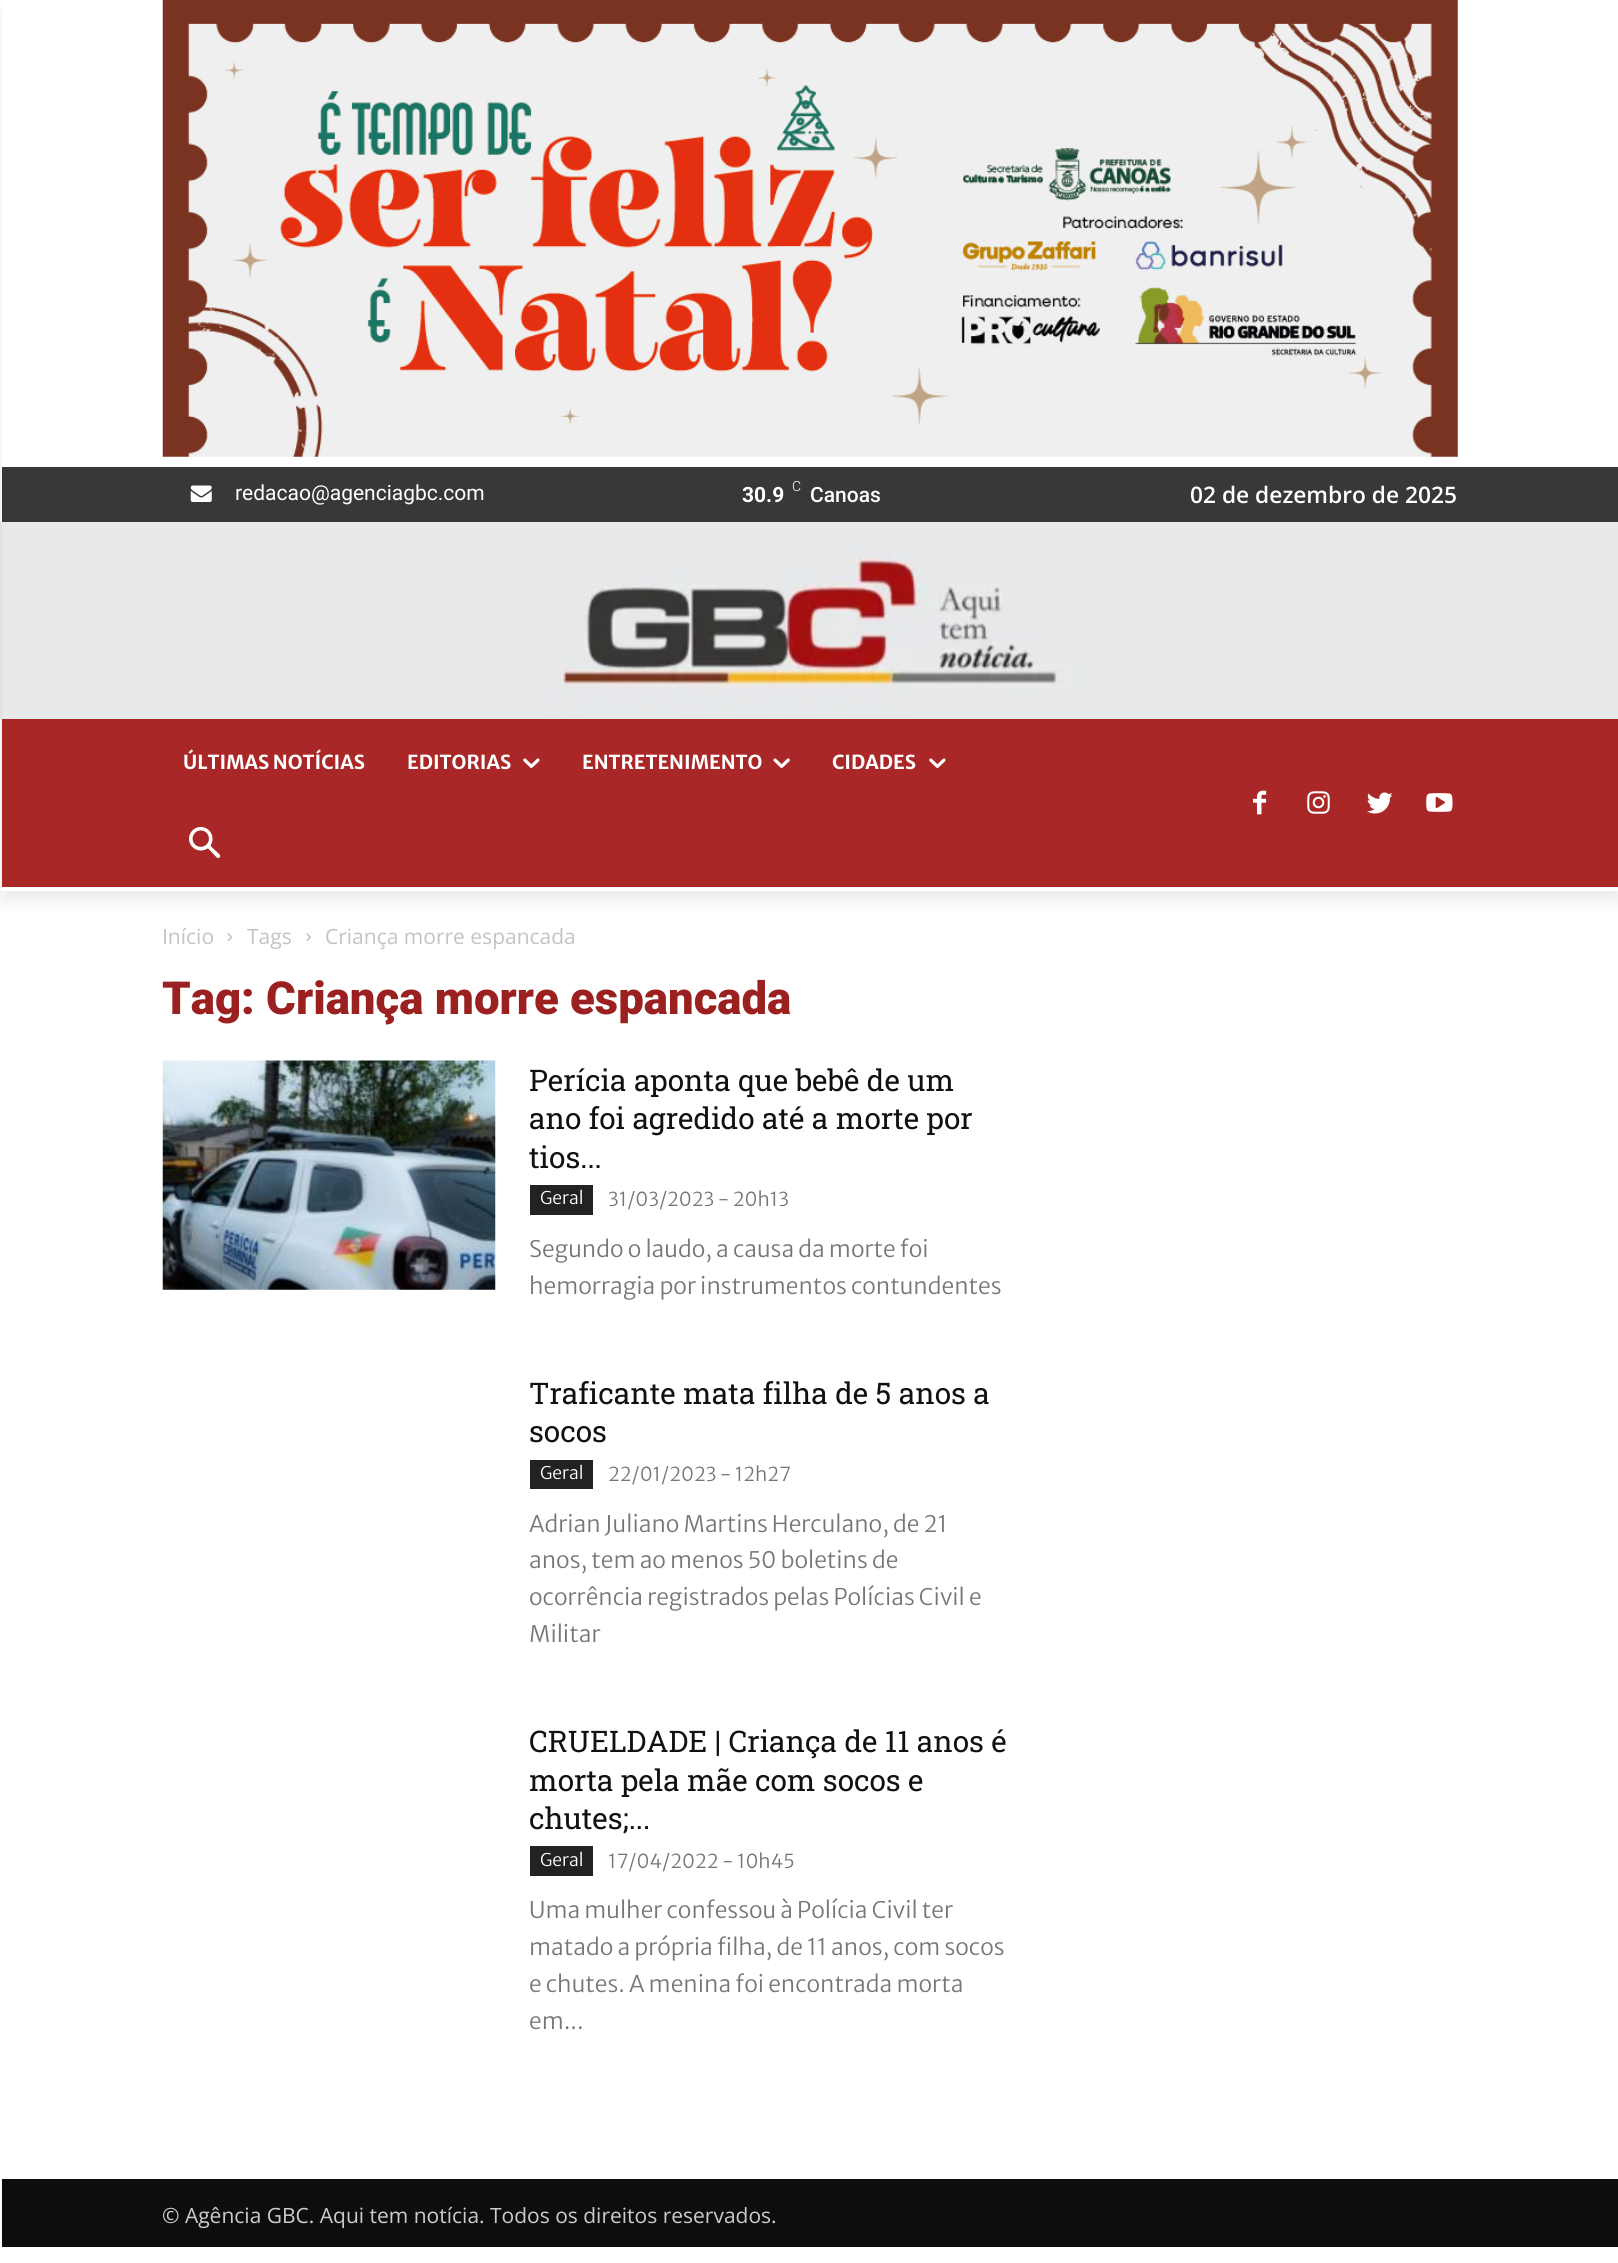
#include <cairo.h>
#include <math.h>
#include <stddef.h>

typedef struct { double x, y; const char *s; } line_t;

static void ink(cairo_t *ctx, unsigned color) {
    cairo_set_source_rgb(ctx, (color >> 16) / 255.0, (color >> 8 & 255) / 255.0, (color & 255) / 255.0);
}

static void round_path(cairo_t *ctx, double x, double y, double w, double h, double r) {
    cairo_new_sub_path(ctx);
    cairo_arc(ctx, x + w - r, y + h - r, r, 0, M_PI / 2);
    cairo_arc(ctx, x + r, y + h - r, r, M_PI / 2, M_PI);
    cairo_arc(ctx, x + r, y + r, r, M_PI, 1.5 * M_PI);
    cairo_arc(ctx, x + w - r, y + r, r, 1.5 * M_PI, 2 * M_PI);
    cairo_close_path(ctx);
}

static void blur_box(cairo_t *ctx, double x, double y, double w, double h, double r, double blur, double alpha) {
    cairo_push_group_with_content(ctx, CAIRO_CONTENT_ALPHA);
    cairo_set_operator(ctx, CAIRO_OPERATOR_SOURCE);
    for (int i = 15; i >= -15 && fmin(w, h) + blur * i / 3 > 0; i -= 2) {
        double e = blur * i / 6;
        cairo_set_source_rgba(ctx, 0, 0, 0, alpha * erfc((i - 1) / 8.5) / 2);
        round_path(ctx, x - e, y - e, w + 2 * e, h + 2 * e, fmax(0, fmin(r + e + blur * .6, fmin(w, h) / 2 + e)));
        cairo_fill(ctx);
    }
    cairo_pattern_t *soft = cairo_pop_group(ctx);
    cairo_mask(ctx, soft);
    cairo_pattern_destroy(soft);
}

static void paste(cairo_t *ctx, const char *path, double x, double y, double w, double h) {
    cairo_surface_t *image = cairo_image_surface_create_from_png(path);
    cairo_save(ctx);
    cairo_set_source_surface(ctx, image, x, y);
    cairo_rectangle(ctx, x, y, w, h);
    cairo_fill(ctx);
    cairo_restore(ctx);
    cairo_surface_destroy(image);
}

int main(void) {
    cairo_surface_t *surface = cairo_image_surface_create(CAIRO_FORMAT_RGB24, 1618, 2263);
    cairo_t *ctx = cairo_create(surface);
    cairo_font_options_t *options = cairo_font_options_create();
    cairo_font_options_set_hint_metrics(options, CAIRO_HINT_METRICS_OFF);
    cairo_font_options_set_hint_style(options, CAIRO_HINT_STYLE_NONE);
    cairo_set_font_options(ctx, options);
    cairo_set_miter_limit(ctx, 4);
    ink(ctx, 0xFFFFFF);
    cairo_paint(ctx);
    paste(ctx, "media/1.png", 162, 0, 1296, 457);
    ink(ctx, 0x383838);
    cairo_rectangle(ctx, 2, 467, 1616, 55);
    cairo_fill(ctx);
    paste(ctx, "media/2.png", 190, 485, 22, 17);
    ink(ctx, 0xE8E9EB);
    cairo_rectangle(ctx, 0, 522, 1618, 197);
    cairo_fill(ctx);
    paste(ctx, "media/3.png", 548, 550, 525, 169);
    ink(ctx, 0xAA2727);
    cairo_rectangle(ctx, 2, 719, 1616, 168);
    cairo_fill(ctx);
    paste(ctx, "media/7.png", 1253, 790, 14, 25);
    paste(ctx, "media/8.png", 1307, 791, 23, 23);
    paste(ctx, "media/9.png", 1367, 792, 26, 22);
    paste(ctx, "media/10.png", 1426, 793, 27, 19);
    cairo_save(ctx);
    cairo_set_fill_rule(ctx, CAIRO_FILL_RULE_EVEN_ODD);
    cairo_new_path(ctx);
    cairo_move_to(ctx, 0, 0);
    cairo_line_to(ctx, 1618, 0);
    cairo_line_to(ctx, 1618, 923);
    cairo_line_to(ctx, 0, 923);
    cairo_close_path(ctx);
    cairo_move_to(ctx, 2, 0);
    cairo_line_to(ctx, 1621, 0);
    cairo_line_to(ctx, 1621, 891);
    cairo_line_to(ctx, 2, 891);
    cairo_close_path(ctx);
    cairo_clip(ctx);
    ink(ctx, 0x000000);
    blur_box(ctx, 2, 11, 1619, 890, 0, 7, 0.08);
    cairo_restore(ctx);
    cairo_select_font_face(ctx, "Roboto", CAIRO_FONT_SLANT_NORMAL, CAIRO_FONT_WEIGHT_NORMAL);
    cairo_set_font_size(ctx, 21);
    ink(ctx, 0xFFFFFF);
    cairo_move_to(ctx, 235, 500);
    cairo_show_text(ctx, "redacao@agenciagbc.com");
    cairo_select_font_face(ctx, "Roboto", CAIRO_FONT_SLANT_NORMAL, CAIRO_FONT_WEIGHT_BOLD);
    cairo_move_to(ctx, 742, 502);
    cairo_show_text(ctx, "30.9");
    cairo_select_font_face(ctx, "Roboto Light", CAIRO_FONT_SLANT_NORMAL, CAIRO_FONT_WEIGHT_NORMAL);
    cairo_set_font_size(ctx, 14);
    cairo_move_to(ctx, 792, 491);
    cairo_show_text(ctx, "C");
    cairo_select_font_face(ctx, "Roboto Medium", CAIRO_FONT_SLANT_NORMAL, CAIRO_FONT_WEIGHT_NORMAL);
    cairo_set_font_size(ctx, 21);
    cairo_move_to(ctx, 810, 502);
    cairo_show_text(ctx, "Canoas");
    cairo_select_font_face(ctx, "Open Sans SemiBold", CAIRO_FONT_SLANT_NORMAL, CAIRO_FONT_WEIGHT_NORMAL);
    cairo_set_font_size(ctx, 22.75);
    cairo_move_to(ctx, 1190, 503);
    cairo_show_text(ctx, "02 de dezembro de 2025");
    cairo_select_font_face(ctx, "Merriweather Sans", CAIRO_FONT_SLANT_NORMAL, CAIRO_FONT_WEIGHT_BOLD);
    cairo_set_font_size(ctx, 19.25);
    cairo_move_to(ctx, 183, 769);
    cairo_show_text(ctx, "ÚLTIMAS NOTÍCIAS");
    cairo_move_to(ctx, 407, 769);
    cairo_show_text(ctx, "EDITORIAS");
    paste(ctx, "media/4.png", 523, 758, 17, 10);
    cairo_move_to(ctx, 582, 769);
    cairo_show_text(ctx, "ENTRETENIMENTO");
    paste(ctx, "media/5.png", 773, 758, 17, 10);
    cairo_move_to(ctx, 832, 769);
    cairo_show_text(ctx, "CIDADES");
    paste(ctx, "media/4.png", 929, 758, 17, 10);
    paste(ctx, "media/6.png", 189, 826, 32, 32);
    cairo_select_font_face(ctx, "Open Sans", CAIRO_FONT_SLANT_NORMAL, CAIRO_FONT_WEIGHT_NORMAL);
    cairo_set_font_size(ctx, 21);
    ink(ctx, 0xC3C3C3);
    cairo_move_to(ctx, 162, 944);
    cairo_show_text(ctx, "Início");
    paste(ctx, "media/11.png", 227, 933, 6, 9);
    cairo_move_to(ctx, 247, 944);
    cairo_show_text(ctx, "Tags");
    paste(ctx, "media/12.png", 306, 933, 5, 9);
    cairo_move_to(ctx, 325, 944);
    cairo_show_text(ctx, "Criança morre espancada");
    cairo_select_font_face(ctx, "Roboto Black", CAIRO_FONT_SLANT_NORMAL, CAIRO_FONT_WEIGHT_NORMAL);
    cairo_set_font_size(ctx, 45.5);
    ink(ctx, 0x9B2020);
    cairo_move_to(ctx, 162, 1014);
    cairo_show_text(ctx, "Tag: Criança morre espancada");
    paste(ctx, "media/13.png", 162, 1060, 334, 230);
    cairo_select_font_face(ctx, "Roboto Slab", CAIRO_FONT_SLANT_NORMAL, CAIRO_FONT_WEIGHT_NORMAL);
    cairo_set_font_size(ctx, 29.75);
    ink(ctx, 0x111111);
    {
        static const line_t items[] = {
            {529, 1091, "Perícia aponta que bebê de um"},
            {529, 1129, "ano foi agredido até a morte por"},
            {529, 1168, "tios..."},
        };
        for (size_t i = 0; i < sizeof items / sizeof *items; i++) {
            cairo_move_to(ctx, items[i].x, items[i].y);
            cairo_show_text(ctx, items[i].s);
        }
    }
    ink(ctx, 0x222222);
    cairo_rectangle(ctx, 530, 1185, 63, 30);
    cairo_fill(ctx);
    cairo_select_font_face(ctx, "Merriweather Sans Light", CAIRO_FONT_SLANT_NORMAL, CAIRO_FONT_WEIGHT_NORMAL);
    cairo_set_font_size(ctx, 17.5);
    ink(ctx, 0xFFFFFF);
    cairo_move_to(ctx, 540, 1204);
    cairo_show_text(ctx, "Geral");
    cairo_set_font_size(ctx, 19.25);
    ink(ctx, 0x767676);
    cairo_move_to(ctx, 608, 1206);
    cairo_show_text(ctx, "31/03/2023 - 20h13");
    cairo_set_font_size(ctx, 22.75);
    cairo_move_to(ctx, 529, 1257);
    cairo_show_text(ctx, "Segundo o laudo, a causa da morte foi");
    cairo_move_to(ctx, 529, 1294);
    cairo_show_text(ctx, "hemorragia por instrumentos contundentes");
    cairo_select_font_face(ctx, "Roboto Slab", CAIRO_FONT_SLANT_NORMAL, CAIRO_FONT_WEIGHT_NORMAL);
    cairo_set_font_size(ctx, 29.75);
    ink(ctx, 0x111111);
    cairo_move_to(ctx, 529, 1404);
    cairo_show_text(ctx, "Traficante mata filha de 5 anos a");
    cairo_move_to(ctx, 529, 1442);
    cairo_show_text(ctx, "socos");
    ink(ctx, 0x222222);
    cairo_rectangle(ctx, 530, 1460, 63, 29);
    cairo_fill(ctx);
    cairo_select_font_face(ctx, "Merriweather Sans Light", CAIRO_FONT_SLANT_NORMAL, CAIRO_FONT_WEIGHT_NORMAL);
    cairo_set_font_size(ctx, 17.5);
    ink(ctx, 0xFFFFFF);
    cairo_move_to(ctx, 540, 1479);
    cairo_show_text(ctx, "Geral");
    cairo_set_font_size(ctx, 19.25);
    ink(ctx, 0x767676);
    cairo_move_to(ctx, 608, 1481);
    cairo_show_text(ctx, "22/01/2023 - 12h27");
    cairo_set_font_size(ctx, 22.75);
    {
        static const line_t items[] = {
            {529, 1532, "Adrian Juliano Martins Herculano, de 21"},
            {529, 1568, "anos, tem ao menos 50 boletins de"},
            {529, 1605, "ocorrência registrados pelas Polícias Civil e"},
            {529, 1642, "Militar"},
        };
        for (size_t i = 0; i < sizeof items / sizeof *items; i++) {
            cairo_move_to(ctx, items[i].x, items[i].y);
            cairo_show_text(ctx, items[i].s);
        }
    }
    cairo_select_font_face(ctx, "Roboto Slab", CAIRO_FONT_SLANT_NORMAL, CAIRO_FONT_WEIGHT_NORMAL);
    cairo_set_font_size(ctx, 29.75);
    ink(ctx, 0x111111);
    {
        static const line_t items[] = {
            {529, 1752, "CRUELDADE | Criança de 11 anos é"},
            {529, 1791, "morta pela mãe com socos e"},
            {529, 1829, "chutes;..."},
        };
        for (size_t i = 0; i < sizeof items / sizeof *items; i++) {
            cairo_move_to(ctx, items[i].x, items[i].y);
            cairo_show_text(ctx, items[i].s);
        }
    }
    ink(ctx, 0x222222);
    cairo_rectangle(ctx, 530, 1846, 63, 30);
    cairo_fill(ctx);
    cairo_select_font_face(ctx, "Merriweather Sans Light", CAIRO_FONT_SLANT_NORMAL, CAIRO_FONT_WEIGHT_NORMAL);
    cairo_set_font_size(ctx, 17.5);
    ink(ctx, 0xFFFFFF);
    cairo_move_to(ctx, 540, 1866);
    cairo_show_text(ctx, "Geral");
    cairo_set_font_size(ctx, 19.25);
    ink(ctx, 0x767676);
    cairo_move_to(ctx, 608, 1868);
    cairo_show_text(ctx, "17/04/2022 - 10h45");
    cairo_set_font_size(ctx, 22.75);
    {
        static const line_t items[] = {
            {529, 1918, "Uma mulher confessou à Polícia Civil ter"},
            {529, 1955, "matado a própria filha, de 11 anos, com socos"},
            {529, 1992, "e chutes. A menina foi encontrada morta"},
            {529, 2029, "em..."},
        };
        for (size_t i = 0; i < sizeof items / sizeof *items; i++) {
            cairo_move_to(ctx, items[i].x, items[i].y);
            cairo_show_text(ctx, items[i].s);
        }
    }
    ink(ctx, 0x0D0D0D);
    cairo_rectangle(ctx, 2, 2179, 1616, 68);
    cairo_fill(ctx);
    cairo_select_font_face(ctx, "Open Sans", CAIRO_FONT_SLANT_NORMAL, CAIRO_FONT_WEIGHT_NORMAL);
    cairo_set_font_size(ctx, 21);
    ink(ctx, 0xCCCCCC);
    cairo_move_to(ctx, 162, 2223);
    cairo_show_text(ctx, "© Agência GBC. Aqui tem notícia. Todos os direitos reservados.");
    cairo_surface_write_to_png(surface, "image.png");
    cairo_font_options_destroy(options);
    cairo_destroy(ctx);
    cairo_surface_destroy(surface);
    return 0;
}
